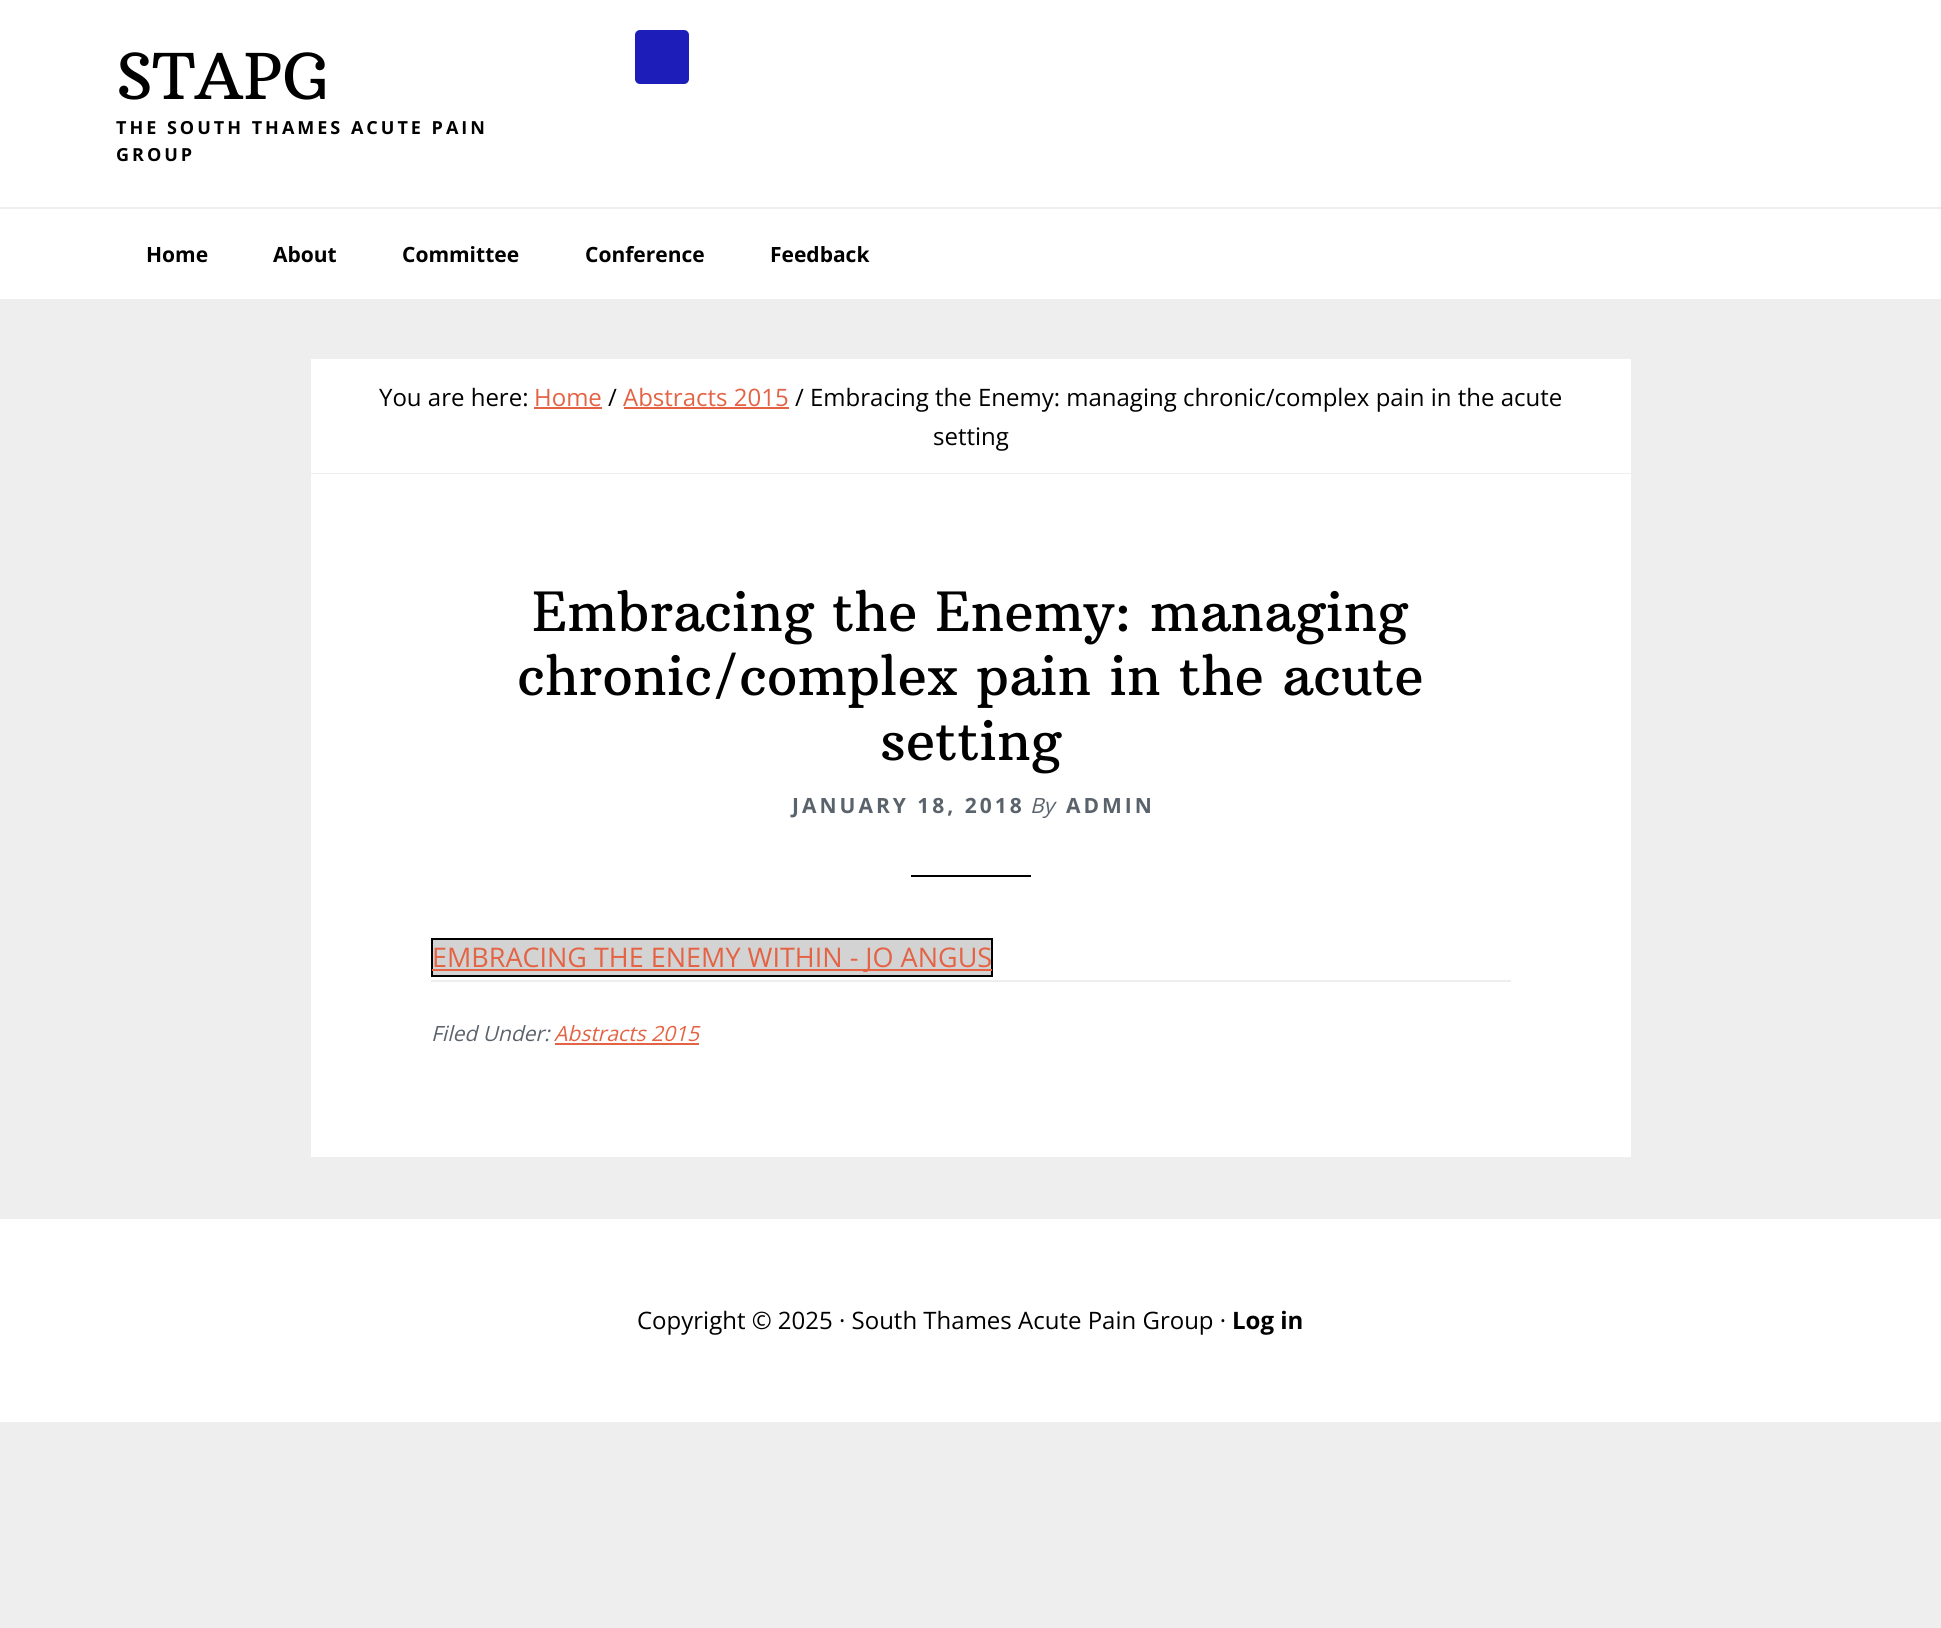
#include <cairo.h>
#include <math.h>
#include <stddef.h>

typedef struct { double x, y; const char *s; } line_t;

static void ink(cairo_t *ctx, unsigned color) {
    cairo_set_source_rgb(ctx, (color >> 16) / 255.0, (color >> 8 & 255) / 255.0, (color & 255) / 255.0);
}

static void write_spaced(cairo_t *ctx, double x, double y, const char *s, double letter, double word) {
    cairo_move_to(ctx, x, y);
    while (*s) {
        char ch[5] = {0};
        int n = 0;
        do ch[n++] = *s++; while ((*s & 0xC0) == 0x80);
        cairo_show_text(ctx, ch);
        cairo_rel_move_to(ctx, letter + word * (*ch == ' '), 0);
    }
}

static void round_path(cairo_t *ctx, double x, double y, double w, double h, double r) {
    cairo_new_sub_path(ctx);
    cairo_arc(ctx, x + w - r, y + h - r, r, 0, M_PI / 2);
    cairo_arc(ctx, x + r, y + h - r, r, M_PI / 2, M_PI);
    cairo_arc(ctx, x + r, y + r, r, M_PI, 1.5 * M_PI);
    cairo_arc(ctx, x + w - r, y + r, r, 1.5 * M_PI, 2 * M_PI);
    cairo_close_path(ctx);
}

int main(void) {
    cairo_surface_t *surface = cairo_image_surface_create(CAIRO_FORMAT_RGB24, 1941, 1628);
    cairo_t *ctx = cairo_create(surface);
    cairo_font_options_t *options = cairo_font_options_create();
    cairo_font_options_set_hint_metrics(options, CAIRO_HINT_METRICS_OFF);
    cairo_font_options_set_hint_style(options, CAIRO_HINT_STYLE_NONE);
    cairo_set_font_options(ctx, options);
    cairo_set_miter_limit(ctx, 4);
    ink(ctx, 0xEEEEEE);
    cairo_paint(ctx);
    ink(ctx, 0xFFFFFF);
    cairo_rectangle(ctx, 0, 0, 1941, 207);
    cairo_fill(ctx);
    cairo_select_font_face(ctx, "Arbutus Slab", CAIRO_FONT_SLANT_NORMAL, CAIRO_FONT_WEIGHT_NORMAL);
    cairo_set_font_size(ctx, 63);
    ink(ctx, 0x000000);
    cairo_move_to(ctx, 116, 99);
    cairo_show_text(ctx, "STAPG");
    cairo_select_font_face(ctx, "Open Sans", CAIRO_FONT_SLANT_NORMAL, CAIRO_FONT_WEIGHT_BOLD);
    cairo_set_font_size(ctx, 18);
    write_spaced(ctx, 116, 134, "THE SOUTH THAMES ACUTE PAIN", 3, 0);
    write_spaced(ctx, 116, 161, "GROUP", 3, 0);
    ink(ctx, 0x1D1DBA);
    round_path(ctx, 635, 30, 54, 54, 5);
    cairo_fill(ctx);
    ink(ctx, 0xFFFFFF);
    cairo_rectangle(ctx, 0, 209, 1941, 90);
    cairo_fill(ctx);
    cairo_set_font_size(ctx, 21);
    ink(ctx, 0x000000);
    {
        static const line_t items[] = {
            {146, 262, "Home"},
            {273, 262, "About"},
            {402, 262, "Committee"},
            {585, 262, "Conference"},
            {770, 262, "Feedback"},
        };
        for (size_t i = 0; i < sizeof items / sizeof *items; i++) {
            cairo_move_to(ctx, items[i].x, items[i].y);
            cairo_show_text(ctx, items[i].s);
        }
    }
    ink(ctx, 0xFFFFFF);
    cairo_rectangle(ctx, 311, 359, 1320, 114);
    cairo_fill(ctx);
    cairo_select_font_face(ctx, "Open Sans", CAIRO_FONT_SLANT_NORMAL, CAIRO_FONT_WEIGHT_NORMAL);
    cairo_set_font_size(ctx, 24);
    ink(ctx, 0x000000);
    cairo_move_to(ctx, 379, 406);
    cairo_show_text(ctx, "You are here:");
    ink(ctx, 0xE36344);
    cairo_move_to(ctx, 534, 406);
    cairo_show_text(ctx, "Home");
    cairo_rectangle(ctx, 534, 407, 68, 2);
    cairo_fill(ctx);
    ink(ctx, 0x000000);
    cairo_move_to(ctx, 608, 406);
    cairo_show_text(ctx, "/");
    ink(ctx, 0xE36344);
    cairo_move_to(ctx, 623, 406);
    cairo_show_text(ctx, "Abstracts 2015");
    cairo_rectangle(ctx, 624, 407, 165, 2);
    cairo_fill(ctx);
    ink(ctx, 0x000000);
    cairo_move_to(ctx, 795, 406);
    cairo_show_text(ctx, "/ Embracing the Enemy: managing chronic/complex pain in the acute");
    cairo_move_to(ctx, 933, 445);
    cairo_show_text(ctx, "setting");
    ink(ctx, 0xFFFFFF);
    cairo_rectangle(ctx, 311, 474, 1320, 683);
    cairo_fill(ctx);
    cairo_select_font_face(ctx, "Arbutus Slab", CAIRO_FONT_SLANT_NORMAL, CAIRO_FONT_WEIGHT_NORMAL);
    cairo_set_font_size(ctx, 54);
    ink(ctx, 0x000000);
    {
        static const line_t items[] = {
            {532, 631, "Embracing the Enemy: managing"},
            {517, 695, "chronic/complex pain in the acute"},
            {880, 760, "setting"},
        };
        for (size_t i = 0; i < sizeof items / sizeof *items; i++) {
            cairo_move_to(ctx, items[i].x, items[i].y);
            cairo_show_text(ctx, items[i].s);
        }
    }
    cairo_select_font_face(ctx, "Open Sans", CAIRO_FONT_SLANT_NORMAL, CAIRO_FONT_WEIGHT_BOLD);
    cairo_set_font_size(ctx, 21);
    ink(ctx, 0x5A636C);
    write_spaced(ctx, 792, 813, "JANUARY 18, 2018", 3, 0);
    cairo_select_font_face(ctx, "Open Sans", CAIRO_FONT_SLANT_ITALIC, CAIRO_FONT_WEIGHT_NORMAL);
    cairo_move_to(ctx, 1030, 813);
    cairo_show_text(ctx, "By");
    cairo_select_font_face(ctx, "Open Sans", CAIRO_FONT_SLANT_NORMAL, CAIRO_FONT_WEIGHT_BOLD);
    write_spaced(ctx, 1066, 813, "ADMIN", 3, 0);
    ink(ctx, 0x000000);
    cairo_rectangle(ctx, 911, 875, 120, 2);
    cairo_fill(ctx);
    ink(ctx, 0xD3D3D3);
    cairo_rectangle(ctx, 432, 939, 560, 37);
    cairo_fill_preserve(ctx);
    ink(ctx, 0x000000);
    cairo_stroke(ctx);
    ink(ctx, 0xE36344);
    cairo_rectangle(ctx, 432, 969, 560, 2);
    cairo_fill(ctx);
    cairo_select_font_face(ctx, "Open Sans", CAIRO_FONT_SLANT_NORMAL, CAIRO_FONT_WEIGHT_NORMAL);
    cairo_set_font_size(ctx, 27);
    cairo_move_to(ctx, 432, 967);
    cairo_show_text(ctx, "EMBRACING THE ENEMY WITHIN - JO ANGUS");
    ink(ctx, 0xEEEEEE);
    cairo_rectangle(ctx, 431, 980, 1080, 2);
    cairo_fill(ctx);
    cairo_select_font_face(ctx, "Open Sans", CAIRO_FONT_SLANT_ITALIC, CAIRO_FONT_WEIGHT_NORMAL);
    cairo_set_font_size(ctx, 21);
    ink(ctx, 0x5A636C);
    cairo_move_to(ctx, 431, 1041);
    cairo_show_text(ctx, "Filed Under:");
    ink(ctx, 0xE36344);
    cairo_move_to(ctx, 554, 1041);
    cairo_show_text(ctx, "Abstracts 2015");
    cairo_rectangle(ctx, 555, 1043, 144, 2);
    cairo_fill(ctx);
    ink(ctx, 0xFFFFFF);
    cairo_rectangle(ctx, 0, 1219, 1941, 203);
    cairo_fill(ctx);
    cairo_select_font_face(ctx, "Open Sans", CAIRO_FONT_SLANT_NORMAL, CAIRO_FONT_WEIGHT_NORMAL);
    cairo_set_font_size(ctx, 24);
    ink(ctx, 0x000000);
    cairo_move_to(ctx, 637, 1329);
    cairo_show_text(ctx, "Copyright © 2025 · South Thames Acute Pain Group ·");
    cairo_select_font_face(ctx, "Open Sans", CAIRO_FONT_SLANT_NORMAL, CAIRO_FONT_WEIGHT_BOLD);
    cairo_move_to(ctx, 1232, 1329);
    cairo_show_text(ctx, "Log in");
    cairo_surface_write_to_png(surface, "image.png");
    cairo_font_options_destroy(options);
    cairo_destroy(ctx);
    cairo_surface_destroy(surface);
    return 0;
}
